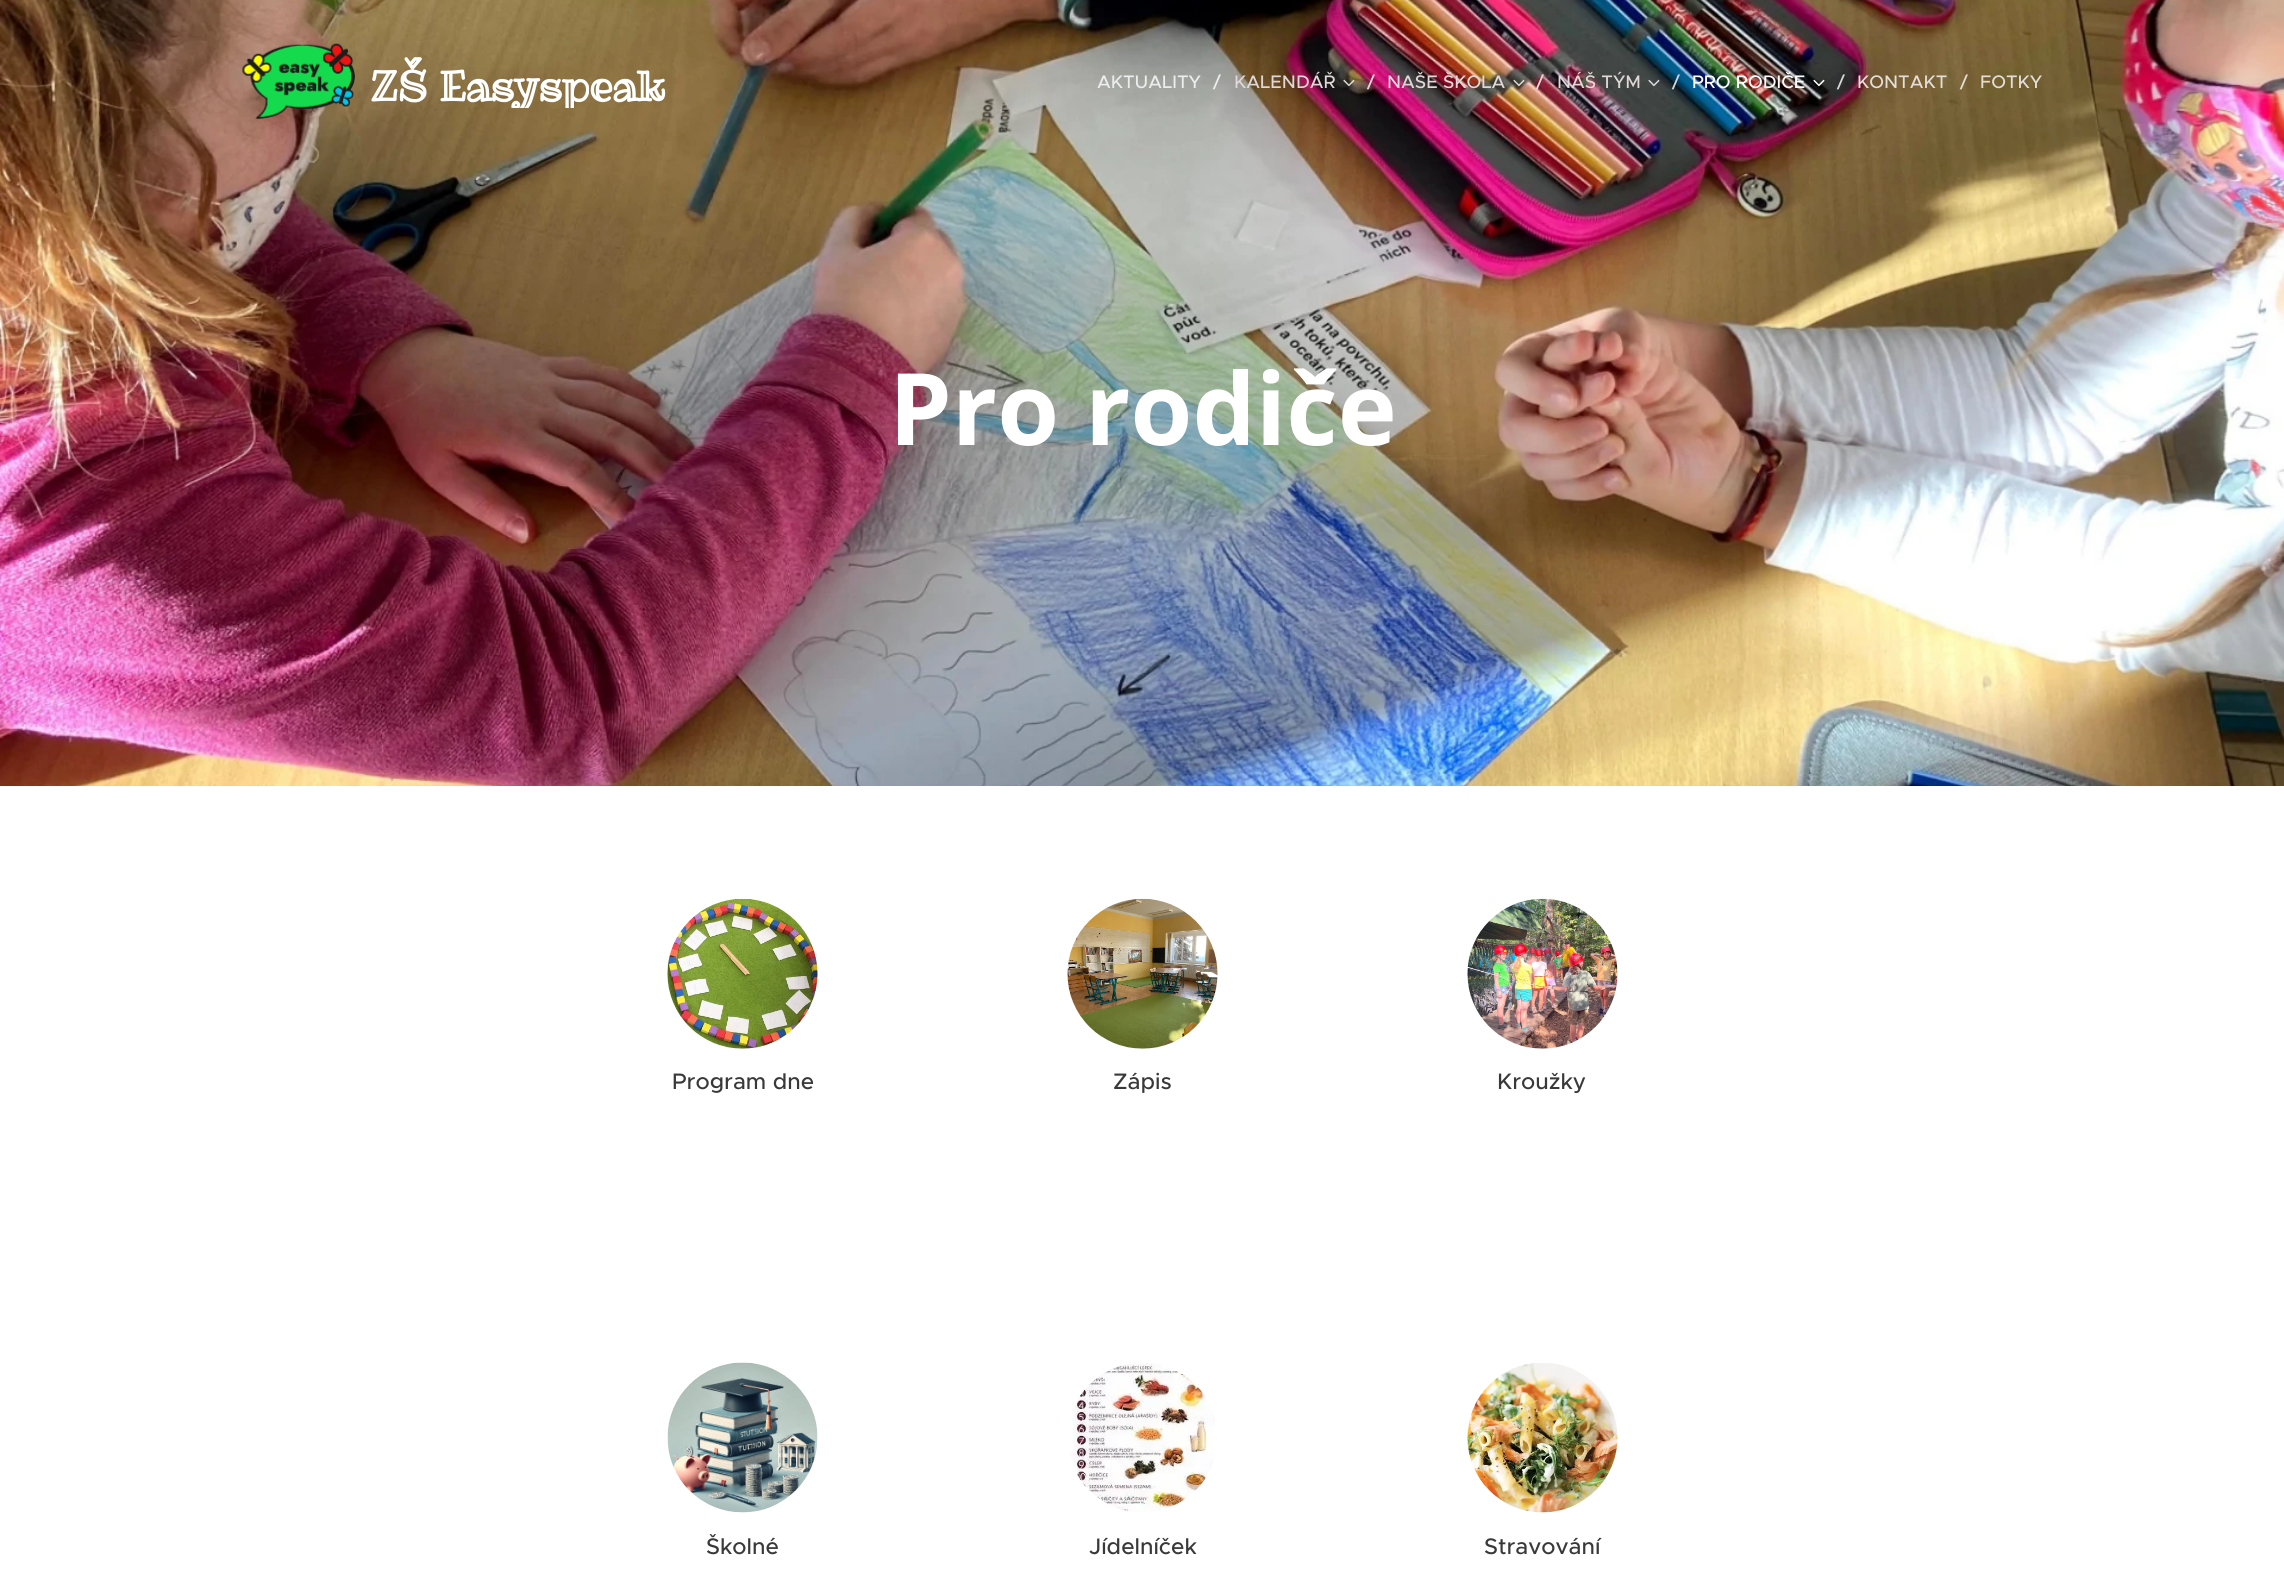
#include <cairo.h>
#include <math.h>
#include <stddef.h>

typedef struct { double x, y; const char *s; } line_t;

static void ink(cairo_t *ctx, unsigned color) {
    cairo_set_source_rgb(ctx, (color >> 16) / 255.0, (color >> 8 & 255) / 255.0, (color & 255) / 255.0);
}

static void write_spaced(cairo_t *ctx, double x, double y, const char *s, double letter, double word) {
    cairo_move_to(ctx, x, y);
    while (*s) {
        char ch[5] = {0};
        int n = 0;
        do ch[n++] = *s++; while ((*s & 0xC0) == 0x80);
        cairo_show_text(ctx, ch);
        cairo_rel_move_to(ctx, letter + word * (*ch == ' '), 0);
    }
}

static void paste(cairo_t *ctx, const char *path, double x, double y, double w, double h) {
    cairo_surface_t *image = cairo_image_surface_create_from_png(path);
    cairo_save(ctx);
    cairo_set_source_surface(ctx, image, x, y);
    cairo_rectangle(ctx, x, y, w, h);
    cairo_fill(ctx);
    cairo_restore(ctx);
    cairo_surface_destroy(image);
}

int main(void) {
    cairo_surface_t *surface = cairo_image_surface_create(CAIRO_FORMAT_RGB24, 2284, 1571);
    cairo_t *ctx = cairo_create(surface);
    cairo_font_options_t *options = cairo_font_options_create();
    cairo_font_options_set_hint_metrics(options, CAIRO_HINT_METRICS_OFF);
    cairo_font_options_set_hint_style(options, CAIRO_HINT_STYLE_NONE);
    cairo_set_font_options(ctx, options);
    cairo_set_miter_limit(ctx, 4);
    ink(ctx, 0xFFFFFF);
    cairo_paint(ctx);
    paste(ctx, "media/6.png", 0, 0, 2284, 786);
    paste(ctx, "media/1.png", 242, 43, 113, 76);
    cairo_save(ctx);
    cairo_rectangle(ctx, 363, 55, 310, 53);
    cairo_clip(ctx);
    cairo_select_font_face(ctx, "Ribeye Marrow", CAIRO_FONT_SLANT_NORMAL, CAIRO_FONT_WEIGHT_BOLD);
    cairo_set_font_size(ctx, 42);
    ink(ctx, 0xFFFFFF);
    write_spaced(ctx, 370, 101, "ZŠ Easyspeak", -0.75, 0);
    cairo_restore(ctx);
    cairo_select_font_face(ctx, "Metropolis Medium", CAIRO_FONT_SLANT_NORMAL, CAIRO_FONT_WEIGHT_NORMAL);
    cairo_set_font_size(ctx, 18.25);
    ink(ctx, 0xECEDEC);
    cairo_move_to(ctx, 1097, 88);
    cairo_show_text(ctx, "AKTUALITY");
    cairo_move_to(ctx, 1213, 88);
    cairo_show_text(ctx, "/");
    ink(ctx, 0xDFD8D7);
    cairo_move_to(ctx, 1234, 88);
    cairo_show_text(ctx, "KALENDÁŘ");
    ink(ctx, 0xE7D3DC);
    cairo_move_to(ctx, 1367, 88);
    cairo_show_text(ctx, "/");
    paste(ctx, "media/2.png", 1343, 79, 12, 8);
    ink(ctx, 0xDFD8D7);
    cairo_move_to(ctx, 1387, 88);
    cairo_show_text(ctx, "NAŠE ŠKOLA");
    ink(ctx, 0xE7D3DC);
    cairo_move_to(ctx, 1536, 88);
    cairo_show_text(ctx, "/");
    paste(ctx, "media/3.png", 1513, 79, 12, 8);
    ink(ctx, 0xDFD8D7);
    cairo_move_to(ctx, 1557, 88);
    cairo_show_text(ctx, "NÁŠ TÝM");
    ink(ctx, 0xCFD7DD);
    cairo_move_to(ctx, 1672, 88);
    cairo_show_text(ctx, "/");
    paste(ctx, "media/4.png", 1648, 79, 12, 8);
    ink(ctx, 0xFFFFFF);
    cairo_move_to(ctx, 1692, 88);
    cairo_show_text(ctx, "PRO RODIČE");
    ink(ctx, 0xD5D6D6);
    cairo_move_to(ctx, 1837, 88);
    cairo_show_text(ctx, "/");
    paste(ctx, "media/5.png", 1813, 79, 12, 8);
    ink(ctx, 0xE4DED7);
    {
        static const line_t items[] = {
            {1857, 88, "KONTAKT"},
            {1960, 88, "/"},
            {1980, 88, "FOTKY"},
        };
        for (size_t i = 0; i < sizeof items / sizeof *items; i++) {
            cairo_move_to(ctx, items[i].x, items[i].y);
            cairo_show_text(ctx, items[i].s);
        }
    }
    cairo_select_font_face(ctx, "Open Sans", CAIRO_FONT_SLANT_NORMAL, CAIRO_FONT_WEIGHT_BOLD);
    cairo_set_font_size(ctx, 100);
    ink(ctx, 0xFFFFFF);
    cairo_move_to(ctx, 889, 445);
    cairo_show_text(ctx, "Pro rodiče");
    paste(ctx, "media/7.png", 667, 898, 151, 151);
    cairo_select_font_face(ctx, "Metropolis Medium", CAIRO_FONT_SLANT_NORMAL, CAIRO_FONT_WEIGHT_NORMAL);
    cairo_set_font_size(ctx, 22.5);
    ink(ctx, 0x393939);
    cairo_move_to(ctx, 672, 1089);
    cairo_show_text(ctx, "Program dne");
    paste(ctx, "media/8.png", 1067, 898, 151, 151);
    cairo_move_to(ctx, 1113, 1089);
    cairo_show_text(ctx, "Zápis");
    paste(ctx, "media/9.png", 1467, 898, 151, 151);
    cairo_move_to(ctx, 1497, 1089);
    cairo_show_text(ctx, "Kroužky");
    paste(ctx, "media/10.png", 667, 1362, 151, 151);
    cairo_move_to(ctx, 706, 1554);
    cairo_show_text(ctx, "Školné");
    paste(ctx, "media/11.png", 1070, 1363, 145, 149);
    cairo_move_to(ctx, 1089, 1554);
    cairo_show_text(ctx, "Jídelníček");
    paste(ctx, "media/12.png", 1467, 1363, 151, 150);
    cairo_move_to(ctx, 1484, 1554);
    cairo_show_text(ctx, "Stravování");
    cairo_surface_write_to_png(surface, "image.png");
    cairo_font_options_destroy(options);
    cairo_destroy(ctx);
    cairo_surface_destroy(surface);
    return 0;
}
